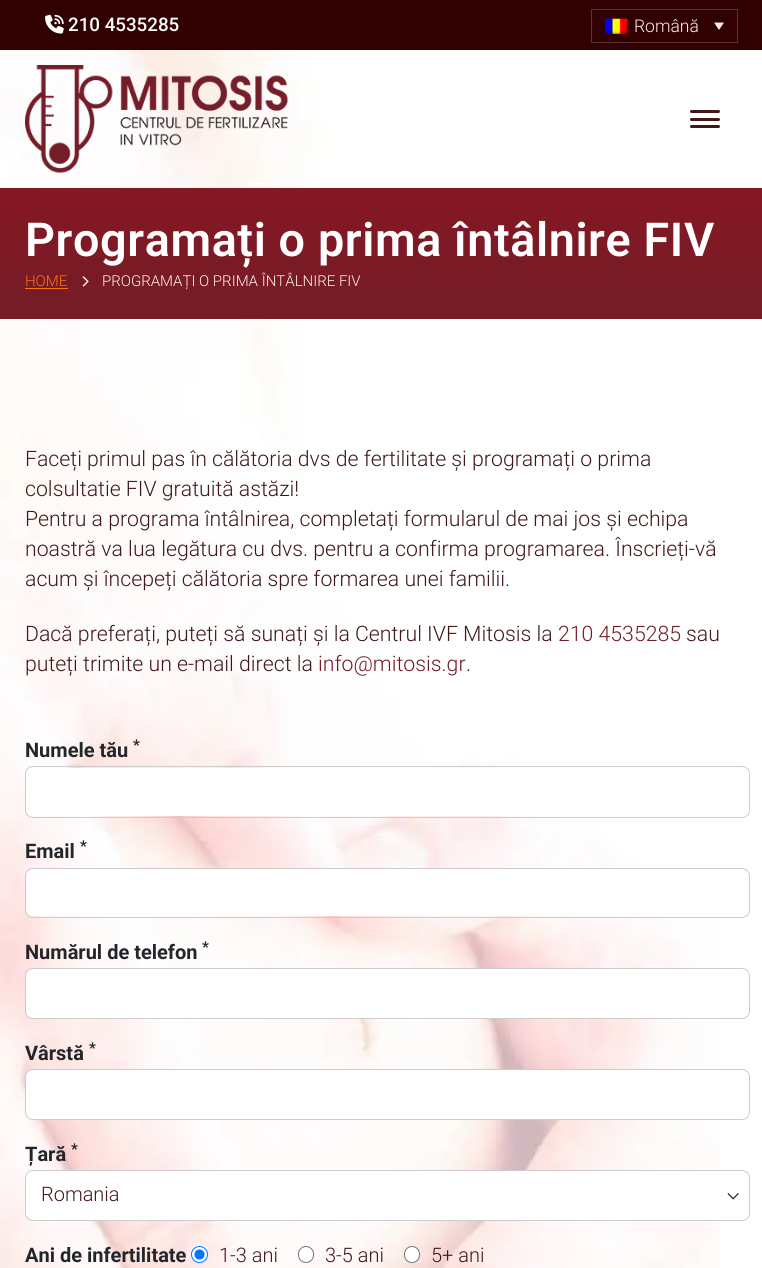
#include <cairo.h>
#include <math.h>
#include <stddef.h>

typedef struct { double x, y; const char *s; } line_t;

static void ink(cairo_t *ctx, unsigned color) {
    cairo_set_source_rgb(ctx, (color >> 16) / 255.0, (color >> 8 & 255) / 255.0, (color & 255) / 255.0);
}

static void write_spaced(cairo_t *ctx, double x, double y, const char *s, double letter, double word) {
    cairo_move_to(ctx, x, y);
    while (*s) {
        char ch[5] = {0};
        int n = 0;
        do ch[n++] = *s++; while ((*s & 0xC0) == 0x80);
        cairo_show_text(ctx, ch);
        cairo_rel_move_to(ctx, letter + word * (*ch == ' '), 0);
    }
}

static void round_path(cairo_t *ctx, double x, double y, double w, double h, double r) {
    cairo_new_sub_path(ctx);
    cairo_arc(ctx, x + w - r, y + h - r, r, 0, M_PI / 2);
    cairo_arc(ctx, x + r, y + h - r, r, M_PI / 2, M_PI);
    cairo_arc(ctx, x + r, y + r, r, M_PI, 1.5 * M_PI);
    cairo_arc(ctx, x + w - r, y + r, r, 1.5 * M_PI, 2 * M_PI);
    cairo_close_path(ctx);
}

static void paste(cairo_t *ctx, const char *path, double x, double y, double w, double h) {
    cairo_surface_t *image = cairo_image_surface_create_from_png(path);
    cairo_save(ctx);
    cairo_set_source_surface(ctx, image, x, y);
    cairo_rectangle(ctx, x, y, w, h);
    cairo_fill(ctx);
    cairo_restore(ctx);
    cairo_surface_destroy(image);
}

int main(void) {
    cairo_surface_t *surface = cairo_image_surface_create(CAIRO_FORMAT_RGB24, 762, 1268);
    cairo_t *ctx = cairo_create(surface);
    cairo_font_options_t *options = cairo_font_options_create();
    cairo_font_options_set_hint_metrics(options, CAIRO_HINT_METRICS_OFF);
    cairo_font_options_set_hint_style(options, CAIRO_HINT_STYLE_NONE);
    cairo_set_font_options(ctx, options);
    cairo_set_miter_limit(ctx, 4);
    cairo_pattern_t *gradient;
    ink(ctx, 0xFFFFFF);
    cairo_paint(ctx);
    paste(ctx, "media/1.png", 0, 50, 721, 1218);
    ink(ctx, 0x310000);
    cairo_rectangle(ctx, 0, 0, 762, 50);
    cairo_fill(ctx);
    paste(ctx, "media/2.png", 45, 14, 19, 20);
    cairo_select_font_face(ctx, "Roboto Medium", CAIRO_FONT_SLANT_NORMAL, CAIRO_FONT_WEIGHT_NORMAL);
    cairo_set_font_size(ctx, 18.75);
    ink(ctx, 0xFFFFFF);
    cairo_move_to(ctx, 68, 31);
    cairo_show_text(ctx, "210 4535285");
    cairo_rectangle(ctx, 591.5, 9.5, 146, 33);
    ink(ctx, 0x5A3333);
    cairo_set_line_width(ctx, 1);
    cairo_stroke(ctx);
    paste(ctx, "media/3.png", 605, 18, 23, 16);
    cairo_select_font_face(ctx, "Roboto Light", CAIRO_FONT_SLANT_NORMAL, CAIRO_FONT_WEIGHT_NORMAL);
    cairo_set_font_size(ctx, 17.5);
    ink(ctx, 0xFFEFEF);
    cairo_move_to(ctx, 634, 32);
    cairo_show_text(ctx, "Română");
    ink(ctx, 0xFFEDED);
    cairo_new_path(ctx);
    cairo_move_to(ctx, 714, 22.5);
    cairo_line_to(ctx, 724, 22.5);
    cairo_line_to(ctx, 719, 30);
    cairo_close_path(ctx);
    cairo_fill(ctx);
    paste(ctx, "media/4.png", 25, 65, 263, 108);
    ink(ctx, 0x3F1917);
    round_path(ctx, 690, 110, 30, 3, 1.5);
    cairo_fill(ctx);
    round_path(ctx, 690, 118, 30, 3, 1.5);
    cairo_fill(ctx);
    round_path(ctx, 690, 125, 30, 3, 1.5);
    cairo_fill(ctx);
    gradient = cairo_pattern_create_linear(381, 187, 381, 319);
    cairo_pattern_add_color_stop_rgba(gradient, 0, 0.525, 0.09, 0.137, 1);
    cairo_pattern_add_color_stop_rgba(gradient, 1, 0.451, 0.114, 0.153, 1);
    cairo_set_source(ctx, gradient);
    cairo_pattern_destroy(gradient);
    cairo_rectangle(ctx, 0, 188, 762, 131);
    cairo_fill(ctx);
    cairo_select_font_face(ctx, "Roboto SemiBold", CAIRO_FONT_SLANT_NORMAL, CAIRO_FONT_WEIGHT_NORMAL);
    cairo_set_font_size(ctx, 46.75);
    ink(ctx, 0xFFFFFF);
    write_spaced(ctx, 25, 256, "Programați o prima întâlnire FIV", 0.6, 0);
    cairo_select_font_face(ctx, "Roboto Light", CAIRO_FONT_SLANT_NORMAL, CAIRO_FONT_WEIGHT_NORMAL);
    cairo_set_font_size(ctx, 15);
    ink(ctx, 0xF77316);
    cairo_move_to(ctx, 25, 286);
    cairo_show_text(ctx, "HOME");
    cairo_rectangle(ctx, 25, 288, 43, 1);
    cairo_fill(ctx);
    paste(ctx, "media/5.png", 82, 276, 7, 11);
    ink(ctx, 0xFFEFEF);
    cairo_move_to(ctx, 102, 286);
    cairo_show_text(ctx, "PROGRAMAȚI O PRIMA ÎNTÂLNIRE FIV");
    cairo_set_font_size(ctx, 21.25);
    ink(ctx, 0x3F1917);
    {
        static const line_t items[] = {
            {25, 466, "Faceți primul pas în călătoria dvs de fertilitate și programați o prima"},
            {25, 496, "colsultatie FIV gratuită astăzi!"},
            {25, 526, "Pentru a programa întâlnirea, completați formularul de mai jos și echipa"},
            {25, 556, "noastră va lua legătura cu dvs. pentru a confirma programarea. Înscrieți-vă"},
            {25, 586, "acum și începeți călătoria spre formarea unei familii."},
            {25, 641, "Dacă preferați, puteți să sunați și la Centrul IVF Mitosis la"},
        };
        for (size_t i = 0; i < sizeof items / sizeof *items; i++) {
            cairo_move_to(ctx, items[i].x, items[i].y);
            cairo_show_text(ctx, items[i].s);
        }
    }
    ink(ctx, 0x731D27);
    cairo_move_to(ctx, 558, 641);
    cairo_show_text(ctx, "210 4535285");
    ink(ctx, 0x3F1917);
    cairo_move_to(ctx, 686, 641);
    cairo_show_text(ctx, "sau");
    cairo_move_to(ctx, 25, 671);
    cairo_show_text(ctx, "puteți trimite un e-mail direct la");
    ink(ctx, 0x731D27);
    cairo_move_to(ctx, 318, 671);
    cairo_show_text(ctx, "info@mitosis.gr");
    ink(ctx, 0x3F1917);
    cairo_move_to(ctx, 466, 671);
    cairo_show_text(ctx, ".");
    cairo_select_font_face(ctx, "Roboto", CAIRO_FONT_SLANT_NORMAL, CAIRO_FONT_WEIGHT_BOLD);
    cairo_set_font_size(ctx, 20);
    ink(ctx, 0x222529);
    cairo_move_to(ctx, 25, 757);
    cairo_show_text(ctx, "Numele tău");
    cairo_set_font_size(ctx, 15);
    cairo_move_to(ctx, 133, 750);
    cairo_show_text(ctx, "*");
    ink(ctx, 0xFFFFFF);
    round_path(ctx, 26, 768, 723, 48, 6);
    cairo_fill(ctx);
    round_path(ctx, 25.5, 766.5, 724, 51, 7.5);
    ink(ctx, 0xCCCCCC);
    cairo_stroke(ctx);
    cairo_set_font_size(ctx, 20);
    ink(ctx, 0x222529);
    cairo_move_to(ctx, 25, 858);
    cairo_show_text(ctx, "Email");
    cairo_set_font_size(ctx, 15);
    cairo_move_to(ctx, 80, 851);
    cairo_show_text(ctx, "*");
    ink(ctx, 0xFFFFFF);
    round_path(ctx, 26, 869, 723, 47, 6);
    cairo_fill(ctx);
    round_path(ctx, 25.5, 868.5, 724, 49, 7.5);
    ink(ctx, 0xCCCCCC);
    cairo_stroke(ctx);
    cairo_set_font_size(ctx, 20);
    ink(ctx, 0x222529);
    cairo_move_to(ctx, 25, 959);
    cairo_show_text(ctx, "Numărul de telefon");
    cairo_set_font_size(ctx, 15);
    cairo_move_to(ctx, 202, 952);
    cairo_show_text(ctx, "*");
    ink(ctx, 0xFFFFFF);
    round_path(ctx, 26, 969, 723, 49, 6);
    cairo_fill(ctx);
    round_path(ctx, 25.5, 968.5, 724, 50, 7.5);
    ink(ctx, 0xCCCCCC);
    cairo_stroke(ctx);
    cairo_set_font_size(ctx, 20);
    ink(ctx, 0x222529);
    cairo_move_to(ctx, 25, 1060);
    cairo_show_text(ctx, "Vârstă");
    cairo_set_font_size(ctx, 15);
    cairo_move_to(ctx, 89, 1053);
    cairo_show_text(ctx, "*");
    ink(ctx, 0xFFFFFF);
    round_path(ctx, 26, 1070, 723, 49, 6);
    cairo_fill(ctx);
    round_path(ctx, 25.5, 1069.5, 724, 50, 7.5);
    ink(ctx, 0xCCCCCC);
    cairo_stroke(ctx);
    cairo_set_font_size(ctx, 20);
    ink(ctx, 0x222529);
    cairo_move_to(ctx, 25, 1161);
    cairo_show_text(ctx, "Țară");
    cairo_set_font_size(ctx, 15);
    cairo_move_to(ctx, 71, 1154);
    cairo_show_text(ctx, "*");
    ink(ctx, 0xFFFFFF);
    round_path(ctx, 26, 1171, 723, 49, 6);
    cairo_fill(ctx);
    paste(ctx, "media/6.png", 727, 1193, 12, 7);
    round_path(ctx, 25.5, 1170.5, 724, 50, 7.5);
    ink(ctx, 0xCCCCCC);
    cairo_stroke(ctx);
    cairo_select_font_face(ctx, "Roboto Light", CAIRO_FONT_SLANT_NORMAL, CAIRO_FONT_WEIGHT_NORMAL);
    cairo_set_font_size(ctx, 20);
    ink(ctx, 0x3F1917);
    cairo_move_to(ctx, 41, 1201);
    cairo_show_text(ctx, "Romania");
    cairo_select_font_face(ctx, "Roboto", CAIRO_FONT_SLANT_NORMAL, CAIRO_FONT_WEIGHT_BOLD);
    ink(ctx, 0x222529);
    cairo_move_to(ctx, 25, 1262);
    cairo_show_text(ctx, "Ani de infertilitate");
    ink(ctx, 0xFFFFFF);
    cairo_new_path(ctx);
    cairo_arc(ctx, 199.5, 1254.5, 8, 0, 2 * M_PI);
    cairo_fill_preserve(ctx);
    ink(ctx, 0x0075FF);
    cairo_stroke(ctx);
    cairo_arc(ctx, 199.5, 1254.5, 5, 0, 2 * M_PI);
    cairo_fill(ctx);
    cairo_select_font_face(ctx, "Roboto Light", CAIRO_FONT_SLANT_NORMAL, CAIRO_FONT_WEIGHT_NORMAL);
    ink(ctx, 0x3F1917);
    cairo_move_to(ctx, 219, 1262);
    cairo_show_text(ctx, "1-3 ani");
    ink(ctx, 0xFFFFFF);
    round_path(ctx, 298.5, 1246.5, 15, 16, 7.5);
    cairo_fill_preserve(ctx);
    ink(ctx, 0x767676);
    cairo_stroke(ctx);
    ink(ctx, 0x3F1917);
    cairo_move_to(ctx, 325, 1262);
    cairo_show_text(ctx, "3-5 ani");
    ink(ctx, 0xFFFFFF);
    round_path(ctx, 404.5, 1246.5, 15, 16, 7.5);
    cairo_fill_preserve(ctx);
    ink(ctx, 0x767676);
    cairo_stroke(ctx);
    ink(ctx, 0x3F1917);
    cairo_move_to(ctx, 431, 1262);
    cairo_show_text(ctx, "5+ ani");
    cairo_surface_write_to_png(surface, "image.png");
    cairo_font_options_destroy(options);
    cairo_destroy(ctx);
    cairo_surface_destroy(surface);
    return 0;
}
